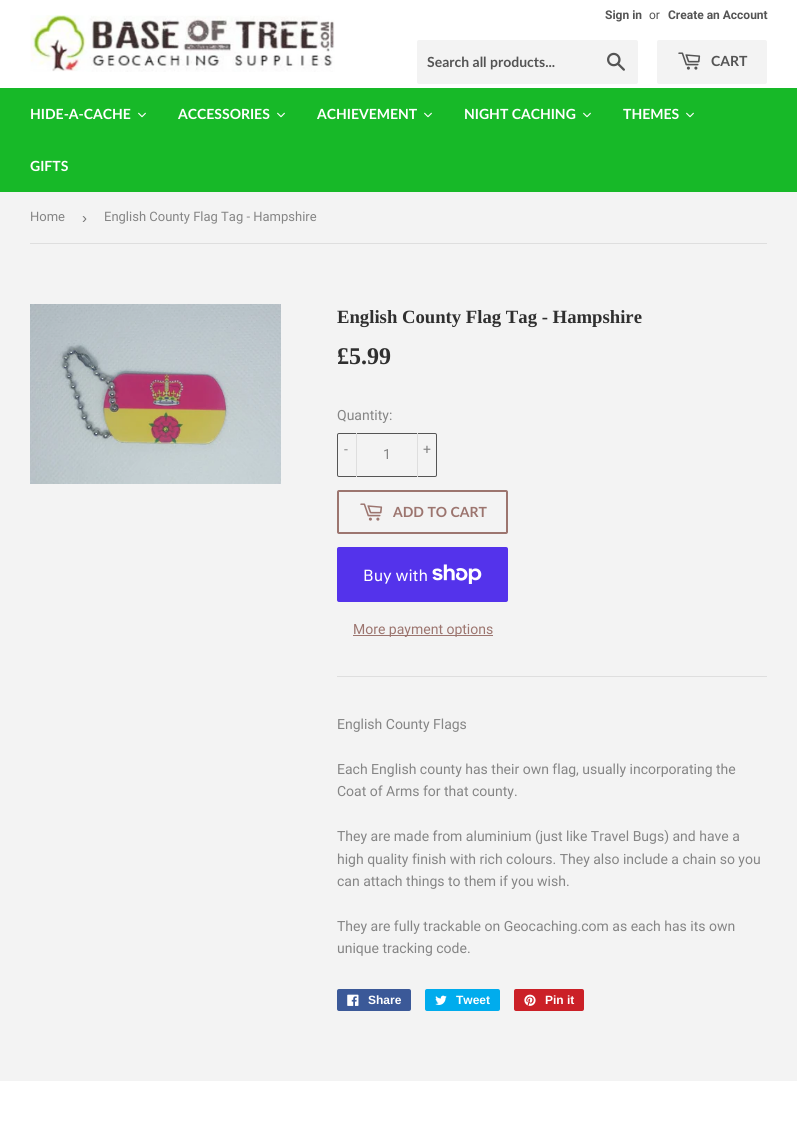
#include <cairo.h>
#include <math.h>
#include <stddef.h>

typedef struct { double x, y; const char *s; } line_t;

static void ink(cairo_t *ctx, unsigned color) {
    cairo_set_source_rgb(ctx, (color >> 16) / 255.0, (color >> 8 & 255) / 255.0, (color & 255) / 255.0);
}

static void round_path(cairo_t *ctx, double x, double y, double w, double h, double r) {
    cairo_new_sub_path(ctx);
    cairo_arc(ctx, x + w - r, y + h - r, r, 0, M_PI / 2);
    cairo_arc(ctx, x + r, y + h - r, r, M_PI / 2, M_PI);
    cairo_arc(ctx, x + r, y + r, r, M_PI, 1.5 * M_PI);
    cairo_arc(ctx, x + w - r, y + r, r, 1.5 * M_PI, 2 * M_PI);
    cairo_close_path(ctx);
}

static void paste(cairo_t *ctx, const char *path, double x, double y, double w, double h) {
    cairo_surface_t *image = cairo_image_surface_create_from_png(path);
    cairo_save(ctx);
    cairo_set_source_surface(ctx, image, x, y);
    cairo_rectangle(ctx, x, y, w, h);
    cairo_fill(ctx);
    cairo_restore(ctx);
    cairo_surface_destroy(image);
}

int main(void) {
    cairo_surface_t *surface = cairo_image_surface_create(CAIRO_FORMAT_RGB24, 797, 1133);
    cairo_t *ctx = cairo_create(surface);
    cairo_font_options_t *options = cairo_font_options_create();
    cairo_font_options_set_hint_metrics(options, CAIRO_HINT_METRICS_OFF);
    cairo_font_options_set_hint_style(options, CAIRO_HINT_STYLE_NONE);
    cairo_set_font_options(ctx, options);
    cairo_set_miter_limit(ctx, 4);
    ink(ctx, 0xFFFFFF);
    cairo_paint(ctx);
    paste(ctx, "media/1.png", 30, 15, 305, 57);
    cairo_select_font_face(ctx, "Roboto", CAIRO_FONT_SLANT_NORMAL, CAIRO_FONT_WEIGHT_BOLD);
    cairo_set_font_size(ctx, 12);
    ink(ctx, 0x545454);
    cairo_move_to(ctx, 605, 19);
    cairo_show_text(ctx, "Sign in");
    cairo_select_font_face(ctx, "Roboto", CAIRO_FONT_SLANT_NORMAL, CAIRO_FONT_WEIGHT_NORMAL);
    cairo_move_to(ctx, 649, 19);
    cairo_show_text(ctx, "or");
    cairo_select_font_face(ctx, "Roboto", CAIRO_FONT_SLANT_NORMAL, CAIRO_FONT_WEIGHT_BOLD);
    cairo_move_to(ctx, 668, 19);
    cairo_show_text(ctx, "Create an Account");
    ink(ctx, 0xF3F3F3);
    round_path(ctx, 417, 40, 221, 44, 2);
    cairo_fill(ctx);
    cairo_select_font_face(ctx, "Lato", CAIRO_FONT_SLANT_NORMAL, CAIRO_FONT_WEIGHT_BOLD);
    cairo_set_font_size(ctx, 14);
    ink(ctx, 0x545454);
    cairo_move_to(ctx, 427, 67);
    cairo_show_text(ctx, "Search all products...");
    paste(ctx, "media/2.png", 607, 52, 18, 19);
    ink(ctx, 0xF3F3F3);
    round_path(ctx, 657, 40, 110, 44, 2);
    cairo_fill(ctx);
    paste(ctx, "media/3.png", 678, 52, 23, 18);
    ink(ctx, 0x545454);
    cairo_move_to(ctx, 711, 66);
    cairo_show_text(ctx, "CART");
    ink(ctx, 0x17B928);
    cairo_rectangle(ctx, 0, 88, 797, 104);
    cairo_fill(ctx);
    ink(ctx, 0xFFFFFF);
    cairo_move_to(ctx, 30, 119);
    cairo_show_text(ctx, "HIDE-A-CACHE");
    paste(ctx, "media/4.png", 138, 112, 8, 6);
    cairo_move_to(ctx, 178, 119);
    cairo_show_text(ctx, "ACCESSORIES");
    paste(ctx, "media/4.png", 277, 112, 8, 6);
    cairo_move_to(ctx, 317, 119);
    cairo_show_text(ctx, "ACHIEVEMENT");
    paste(ctx, "media/4.png", 424, 112, 8, 6);
    cairo_move_to(ctx, 464, 119);
    cairo_show_text(ctx, "NIGHT CACHING");
    paste(ctx, "media/4.png", 583, 112, 8, 6);
    cairo_move_to(ctx, 623, 119);
    cairo_show_text(ctx, "THEMES");
    paste(ctx, "media/4.png", 686, 112, 8, 6);
    cairo_move_to(ctx, 30, 171);
    cairo_show_text(ctx, "GIFTS");
    ink(ctx, 0xF3F3F3);
    cairo_rectangle(ctx, 0, 192, 797, 889);
    cairo_fill(ctx);
    ink(ctx, 0xDEDEDE);
    cairo_rectangle(ctx, 30, 243, 737, 1);
    cairo_fill(ctx);
    cairo_select_font_face(ctx, "Roboto", CAIRO_FONT_SLANT_NORMAL, CAIRO_FONT_WEIGHT_NORMAL);
    cairo_set_font_size(ctx, 13);
    ink(ctx, 0x858585);
    cairo_move_to(ctx, 30, 221);
    cairo_show_text(ctx, "Home");
    cairo_select_font_face(ctx, "Liberation Sans", CAIRO_FONT_SLANT_NORMAL, CAIRO_FONT_WEIGHT_NORMAL);
    cairo_set_font_size(ctx, 15);
    ink(ctx, 0x767676);
    cairo_move_to(ctx, 82, 223);
    cairo_show_text(ctx, "›");
    cairo_select_font_face(ctx, "Roboto", CAIRO_FONT_SLANT_NORMAL, CAIRO_FONT_WEIGHT_NORMAL);
    cairo_set_font_size(ctx, 13);
    ink(ctx, 0x858585);
    cairo_move_to(ctx, 104, 221);
    cairo_show_text(ctx, "English County Flag Tag - Hampshire");
    paste(ctx, "media/5.png", 30, 304, 251, 180);
    cairo_select_font_face(ctx, "Liberation Serif", CAIRO_FONT_SLANT_NORMAL, CAIRO_FONT_WEIGHT_BOLD);
    cairo_set_font_size(ctx, 18.7);
    ink(ctx, 0x2F2F2F);
    cairo_move_to(ctx, 337, 323);
    cairo_show_text(ctx, "English County Flag Tag - Hampshire");
    cairo_set_font_size(ctx, 24);
    cairo_move_to(ctx, 337, 364);
    cairo_show_text(ctx, "£5.99");
    cairo_select_font_face(ctx, "Roboto", CAIRO_FONT_SLANT_NORMAL, CAIRO_FONT_WEIGHT_NORMAL);
    cairo_set_font_size(ctx, 14);
    ink(ctx, 0x858585);
    cairo_move_to(ctx, 337, 420);
    cairo_show_text(ctx, "Quantity:");
    round_path(ctx, 337.5, 433.5, 99, 43, 1.5);
    ink(ctx, 0x555555);
    cairo_set_line_width(ctx, 1);
    cairo_stroke(ctx);
    ink(ctx, 0xDEDEDE);
    cairo_rectangle(ctx, 356, 433, 1, 44);
    cairo_fill(ctx);
    ink(ctx, 0x858585);
    cairo_move_to(ctx, 344, 454);
    cairo_show_text(ctx, "-");
    cairo_move_to(ctx, 383, 459);
    cairo_show_text(ctx, "1");
    ink(ctx, 0xDEDEDE);
    cairo_rectangle(ctx, 417, 433, 1, 44);
    cairo_fill(ctx);
    ink(ctx, 0x858585);
    cairo_move_to(ctx, 423, 454);
    cairo_show_text(ctx, "+");
    round_path(ctx, 338, 491, 169, 42, 1);
    ink(ctx, 0x9C756F);
    cairo_set_line_width(ctx, 2);
    cairo_stroke(ctx);
    paste(ctx, "media/6.png", 360, 503, 23, 18);
    cairo_select_font_face(ctx, "Lato", CAIRO_FONT_SLANT_NORMAL, CAIRO_FONT_WEIGHT_BOLD);
    cairo_move_to(ctx, 393, 517);
    cairo_show_text(ctx, "ADD TO CART");
    ink(ctx, 0x5433EB);
    round_path(ctx, 337, 547, 171, 55, 2);
    cairo_fill(ctx);
    cairo_select_font_face(ctx, "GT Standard", CAIRO_FONT_SLANT_NORMAL, CAIRO_FONT_WEIGHT_NORMAL);
    cairo_set_font_size(ctx, 16);
    ink(ctx, 0xFFFFFF);
    cairo_move_to(ctx, 363, 581);
    cairo_show_text(ctx, "Buy with");
    paste(ctx, "media/7.png", 432, 564, 50, 20);
    ink(ctx, 0x9C756F);
    cairo_rectangle(ctx, 353, 635, 140, 1);
    cairo_fill(ctx);
    cairo_select_font_face(ctx, "Roboto", CAIRO_FONT_SLANT_NORMAL, CAIRO_FONT_WEIGHT_NORMAL);
    cairo_set_font_size(ctx, 14);
    cairo_move_to(ctx, 353, 634);
    cairo_show_text(ctx, "More payment options");
    ink(ctx, 0xDEDEDE);
    cairo_rectangle(ctx, 337, 676, 430, 1);
    cairo_fill(ctx);
    ink(ctx, 0x858585);
    {
        static const line_t items[] = {
            {337, 729, "English County Flags"},
            {337, 774, "Each English county has their own flag, usually incorporating the"},
            {337, 796, "Coat of Arms for that county."},
            {337, 841, "They are made from aluminium (just like Travel Bugs) and have a"},
            {337, 864, "high quality finish with rich colours. They also include a chain so you"},
            {337, 886, "can attach things to them if you wish."},
            {337, 931, "They are fully trackable on Geocaching.com as each has its own"},
            {337, 953, "unique tracking code."},
        };
        for (size_t i = 0; i < sizeof items / sizeof *items; i++) {
            cairo_move_to(ctx, items[i].x, items[i].y);
            cairo_show_text(ctx, items[i].s);
        }
    }
    ink(ctx, 0x3B5998);
    round_path(ctx, 337, 989, 74, 22, 2);
    cairo_fill(ctx);
    paste(ctx, "media/8.png", 347, 994, 12, 12);
    cairo_select_font_face(ctx, "Liberation Sans", CAIRO_FONT_SLANT_NORMAL, CAIRO_FONT_WEIGHT_BOLD);
    cairo_set_font_size(ctx, 12);
    ink(ctx, 0xFFFFFF);
    cairo_move_to(ctx, 368, 1004);
    cairo_show_text(ctx, "Share");
    ink(ctx, 0x00ACED);
    round_path(ctx, 425, 989, 75, 22, 2);
    cairo_fill(ctx);
    paste(ctx, "media/9.png", 435, 995, 12, 10);
    ink(ctx, 0xFFFFFF);
    cairo_move_to(ctx, 456, 1004);
    cairo_show_text(ctx, "Tweet");
    ink(ctx, 0xCB2027);
    round_path(ctx, 514, 989, 70, 22, 2);
    cairo_fill(ctx);
    paste(ctx, "media/10.png", 524, 994, 12, 12);
    ink(ctx, 0xFFFFFF);
    cairo_move_to(ctx, 545, 1004);
    cairo_show_text(ctx, "Pin it");
    cairo_surface_write_to_png(surface, "image.png");
    cairo_font_options_destroy(options);
    cairo_destroy(ctx);
    cairo_surface_destroy(surface);
    return 0;
}
